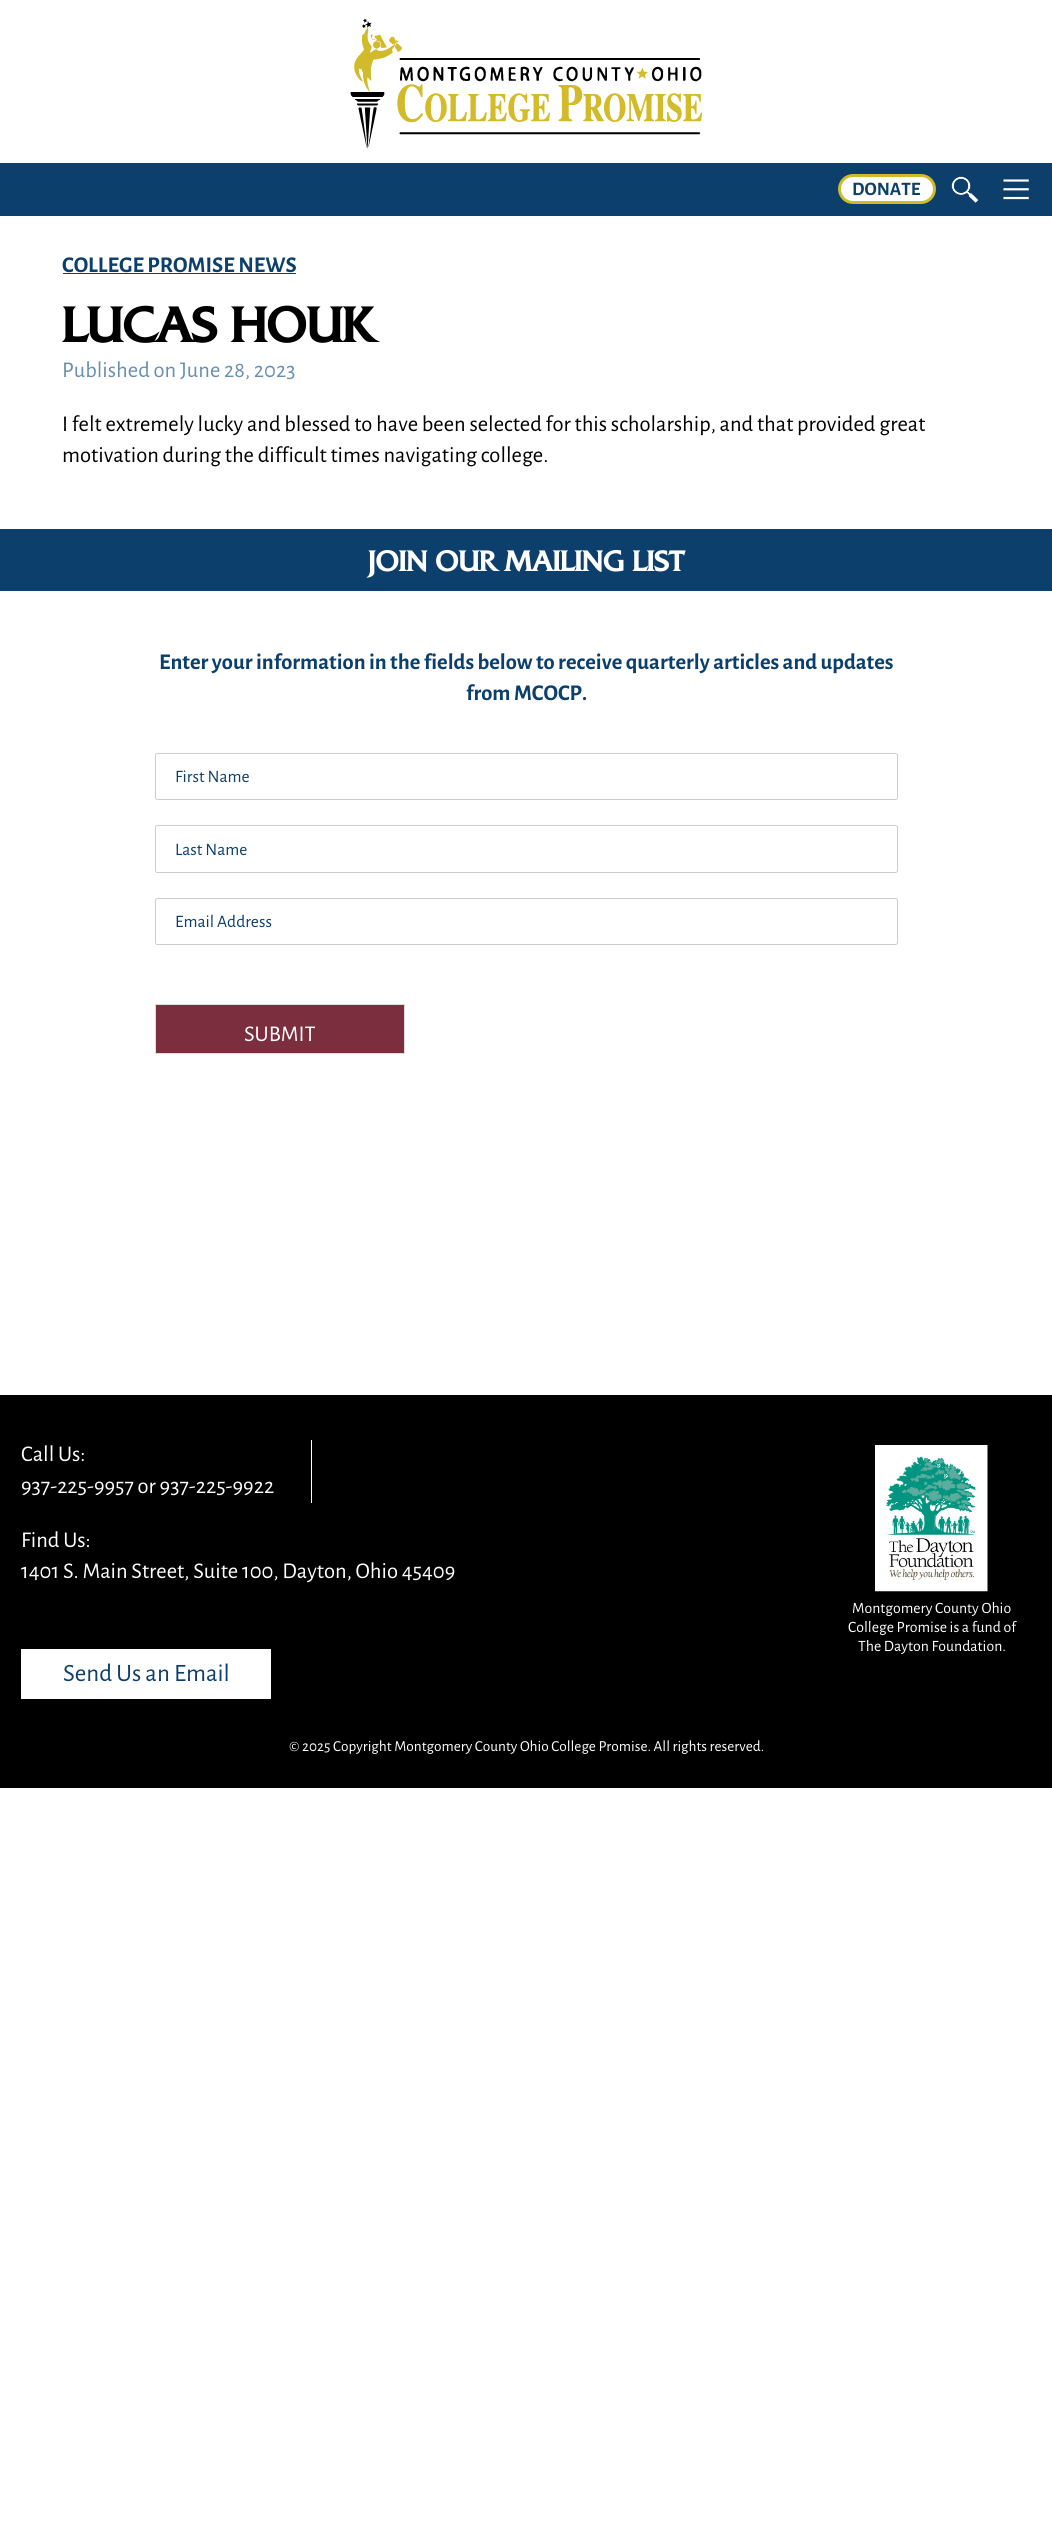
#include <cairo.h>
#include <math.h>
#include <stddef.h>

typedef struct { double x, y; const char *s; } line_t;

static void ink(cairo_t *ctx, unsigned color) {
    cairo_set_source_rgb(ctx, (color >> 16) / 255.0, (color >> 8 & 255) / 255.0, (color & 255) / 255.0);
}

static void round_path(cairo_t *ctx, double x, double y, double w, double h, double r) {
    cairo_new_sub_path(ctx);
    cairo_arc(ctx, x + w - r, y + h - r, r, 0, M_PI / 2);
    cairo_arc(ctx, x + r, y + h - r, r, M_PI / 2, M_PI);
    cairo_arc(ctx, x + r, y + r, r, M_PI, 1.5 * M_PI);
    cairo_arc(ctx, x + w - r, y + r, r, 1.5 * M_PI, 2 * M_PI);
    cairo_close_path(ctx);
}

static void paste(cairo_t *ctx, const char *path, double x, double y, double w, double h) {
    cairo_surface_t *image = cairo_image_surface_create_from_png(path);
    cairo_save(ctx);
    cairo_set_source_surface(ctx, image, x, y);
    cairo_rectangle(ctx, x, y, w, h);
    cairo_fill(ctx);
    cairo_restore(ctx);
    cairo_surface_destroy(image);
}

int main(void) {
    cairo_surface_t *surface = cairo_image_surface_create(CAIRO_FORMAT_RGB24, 1052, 2543);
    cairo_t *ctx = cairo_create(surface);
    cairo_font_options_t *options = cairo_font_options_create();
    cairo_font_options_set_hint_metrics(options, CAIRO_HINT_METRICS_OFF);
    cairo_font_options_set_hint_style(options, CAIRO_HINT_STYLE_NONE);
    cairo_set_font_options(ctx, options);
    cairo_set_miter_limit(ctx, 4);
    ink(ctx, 0xFFFFFF);
    cairo_paint(ctx);
    paste(ctx, "media/1.png", 350, 18, 353, 131);
    ink(ctx, 0x0C3F6C);
    cairo_rectangle(ctx, 0, 163, 1052, 53);
    cairo_fill(ctx);
    ink(ctx, 0xFFFFFF);
    round_path(ctx, 839.5, 175.5, 95, 27, 13.5);
    cairo_fill_preserve(ctx);
    ink(ctx, 0xD1BA2A);
    cairo_set_line_width(ctx, 3);
    cairo_stroke(ctx);
    cairo_select_font_face(ctx, "Alegreya Sans", CAIRO_FONT_SLANT_NORMAL, CAIRO_FONT_WEIGHT_BOLD);
    cairo_set_font_size(ctx, 19);
    ink(ctx, 0x0C3F6C);
    cairo_move_to(ctx, 852, 195);
    cairo_show_text(ctx, "DONATE");
    paste(ctx, "media/2.png", 951, 176, 28, 27);
    paste(ctx, "media/3.png", 1003, 179, 26, 21);
    cairo_set_font_size(ctx, 22.5);
    cairo_move_to(ctx, 62, 272);
    cairo_show_text(ctx, "COLLEGE PROMISE NEWS");
    cairo_rectangle(ctx, 63, 273, 233, 1);
    cairo_fill(ctx);
    cairo_select_font_face(ctx, "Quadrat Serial", CAIRO_FONT_SLANT_NORMAL, CAIRO_FONT_WEIGHT_BOLD);
    cairo_set_font_size(ctx, 47.5);
    ink(ctx, 0x000000);
    cairo_move_to(ctx, 62, 342);
    cairo_show_text(ctx, "LUCAS HOUK");
    cairo_select_font_face(ctx, "Alegreya Sans", CAIRO_FONT_SLANT_NORMAL, CAIRO_FONT_WEIGHT_NORMAL);
    cairo_set_font_size(ctx, 22.5);
    ink(ctx, 0x688EB0);
    cairo_move_to(ctx, 62, 377);
    cairo_show_text(ctx, "Published on June 28, 2023");
    ink(ctx, 0x000000);
    cairo_move_to(ctx, 62, 431);
    cairo_show_text(ctx, "I felt extremely lucky and blessed to have been selected for this scholarship, and that provided great");
    cairo_move_to(ctx, 62, 462);
    cairo_show_text(ctx, "motivation during the difficult times navigating college.");
    ink(ctx, 0x0C3F6C);
    cairo_rectangle(ctx, 0, 529, 1052, 62);
    cairo_fill(ctx);
    cairo_select_font_face(ctx, "Quadrat Serial", CAIRO_FONT_SLANT_NORMAL, CAIRO_FONT_WEIGHT_BOLD);
    cairo_set_font_size(ctx, 27.5);
    ink(ctx, 0xFFFFFF);
    cairo_move_to(ctx, 368, 571);
    cairo_show_text(ctx, "JOIN OUR MAILING LIST");
    cairo_select_font_face(ctx, "Alegreya Sans", CAIRO_FONT_SLANT_NORMAL, CAIRO_FONT_WEIGHT_BOLD);
    cairo_set_font_size(ctx, 22.5);
    ink(ctx, 0x0C3F6C);
    cairo_move_to(ctx, 159, 669);
    cairo_show_text(ctx, "Enter your information in the fields below to receive quarterly articles and updates");
    cairo_move_to(ctx, 466, 700);
    cairo_show_text(ctx, "from MCOCP.");
    round_path(ctx, 155.5, 753.5, 742, 46, 2);
    ink(ctx, 0xCCCCCC);
    cairo_set_line_width(ctx, 1);
    cairo_stroke(ctx);
    cairo_select_font_face(ctx, "Alegreya Sans", CAIRO_FONT_SLANT_NORMAL, CAIRO_FONT_WEIGHT_NORMAL);
    cairo_set_font_size(ctx, 17.5);
    ink(ctx, 0x0C3F6C);
    cairo_move_to(ctx, 175, 782);
    cairo_show_text(ctx, "First Name");
    round_path(ctx, 155.5, 825.5, 742, 47, 2);
    ink(ctx, 0xCCCCCC);
    cairo_stroke(ctx);
    ink(ctx, 0x0C3F6C);
    cairo_move_to(ctx, 175, 855);
    cairo_show_text(ctx, "Last Name");
    round_path(ctx, 155.5, 898.5, 742, 46, 2);
    ink(ctx, 0xCCCCCC);
    cairo_stroke(ctx);
    ink(ctx, 0x0C3F6C);
    cairo_move_to(ctx, 175, 927);
    cairo_show_text(ctx, "Email Address");
    ink(ctx, 0x7B2F3E);
    cairo_rectangle(ctx, 155.5, 1004.5, 249, 49);
    cairo_fill_preserve(ctx);
    ink(ctx, 0xDDDDDD);
    cairo_stroke(ctx);
    cairo_set_font_size(ctx, 22.5);
    ink(ctx, 0xFFFFFF);
    cairo_move_to(ctx, 244, 1041);
    cairo_show_text(ctx, "SUBMIT");
    ink(ctx, 0x000000);
    cairo_rectangle(ctx, 0, 1395, 1052, 393);
    cairo_fill(ctx);
    ink(ctx, 0xFFFFFF);
    cairo_rectangle(ctx, 311, 1440, 1, 63);
    cairo_fill(ctx);
    {
        static const line_t items[] = {
            {21, 1461, "Call Us:"},
            {21, 1493, "937-225-9957 or 937-225-9922"},
            {21, 1547, "Find Us:"},
            {21, 1578, "1401 S. Main Street, Suite 100, Dayton, Ohio 45409"},
        };
        for (size_t i = 0; i < sizeof items / sizeof *items; i++) {
            cairo_move_to(ctx, items[i].x, items[i].y);
            cairo_show_text(ctx, items[i].s);
        }
    }
    cairo_rectangle(ctx, 21, 1649, 250, 50);
    cairo_fill(ctx);
    cairo_set_font_size(ctx, 25);
    ink(ctx, 0x0C3F6C);
    cairo_move_to(ctx, 63, 1681);
    cairo_show_text(ctx, "Send Us an Email");
    paste(ctx, "media/4.png", 875, 1445, 113, 147);
    cairo_set_font_size(ctx, 15.75);
    ink(ctx, 0xFFFFFF);
    {
        static const line_t items[] = {
            {852, 1613, "Montgomery County Ohio"},
            {848, 1632, "College Promise is a fund of"},
            {858, 1651, "The Dayton Foundation."},
        };
        for (size_t i = 0; i < sizeof items / sizeof *items; i++) {
            cairo_move_to(ctx, items[i].x, items[i].y);
            cairo_show_text(ctx, items[i].s);
        }
    }
    cairo_set_font_size(ctx, 15.3);
    cairo_move_to(ctx, 289, 1751);
    cairo_show_text(ctx, "© 2025 Copyright Montgomery County Ohio College Promise. All rights reserved.");
    cairo_surface_write_to_png(surface, "image.png");
    cairo_font_options_destroy(options);
    cairo_destroy(ctx);
    cairo_surface_destroy(surface);
    return 0;
}
